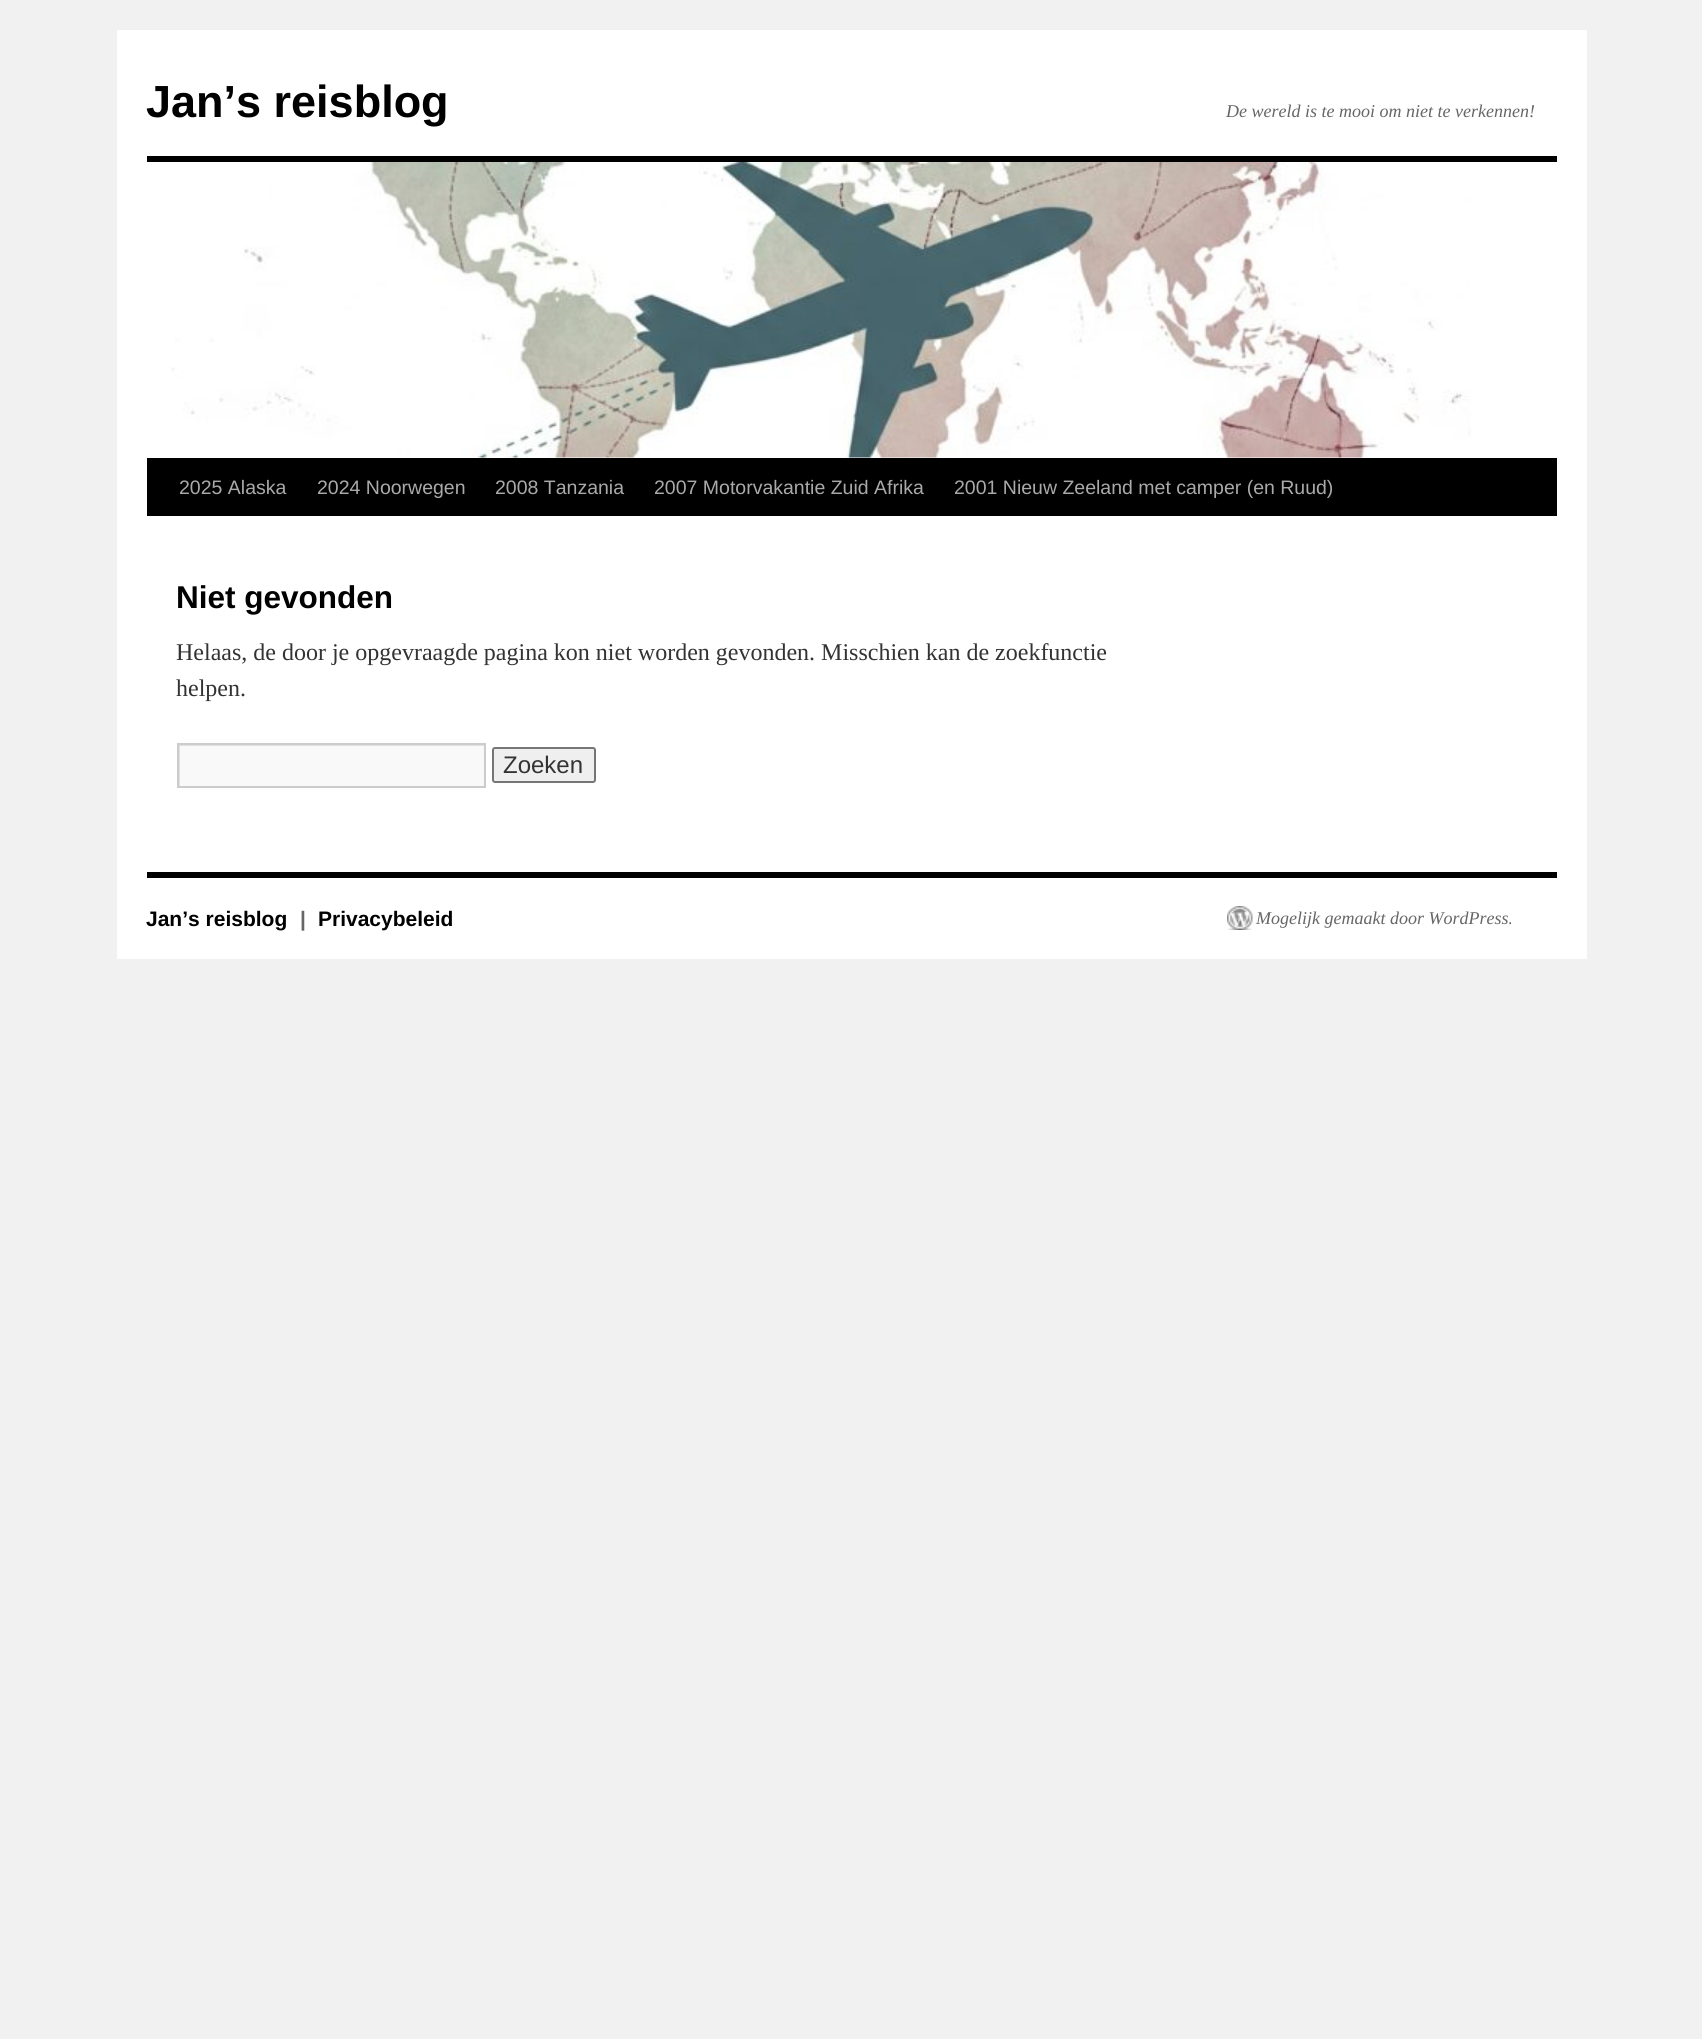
#include <cairo.h>
#include <math.h>
#include <stddef.h>

typedef struct { double x, y; const char *s; } line_t;

static void ink(cairo_t *ctx, unsigned color) {
    cairo_set_source_rgb(ctx, (color >> 16) / 255.0, (color >> 8 & 255) / 255.0, (color & 255) / 255.0);
}

static void round_path(cairo_t *ctx, double x, double y, double w, double h, double r) {
    cairo_new_sub_path(ctx);
    cairo_arc(ctx, x + w - r, y + h - r, r, 0, M_PI / 2);
    cairo_arc(ctx, x + r, y + h - r, r, M_PI / 2, M_PI);
    cairo_arc(ctx, x + r, y + r, r, M_PI, 1.5 * M_PI);
    cairo_arc(ctx, x + w - r, y + r, r, 1.5 * M_PI, 2 * M_PI);
    cairo_close_path(ctx);
}

static void paste(cairo_t *ctx, const char *path, double x, double y, double w, double h) {
    cairo_surface_t *image = cairo_image_surface_create_from_png(path);
    cairo_save(ctx);
    cairo_set_source_surface(ctx, image, x, y);
    cairo_rectangle(ctx, x, y, w, h);
    cairo_fill(ctx);
    cairo_restore(ctx);
    cairo_surface_destroy(image);
}

int main(void) {
    cairo_surface_t *surface = cairo_image_surface_create(CAIRO_FORMAT_RGB24, 1702, 2039);
    cairo_t *ctx = cairo_create(surface);
    cairo_font_options_t *options = cairo_font_options_create();
    cairo_font_options_set_hint_metrics(options, CAIRO_HINT_METRICS_OFF);
    cairo_font_options_set_hint_style(options, CAIRO_HINT_STYLE_NONE);
    cairo_set_font_options(ctx, options);
    cairo_set_miter_limit(ctx, 4);
    ink(ctx, 0xF1F1F1);
    cairo_paint(ctx);
    ink(ctx, 0xFFFFFF);
    cairo_rectangle(ctx, 117, 30, 1470, 929);
    cairo_fill(ctx);
    cairo_select_font_face(ctx, "Liberation Sans", CAIRO_FONT_SLANT_NORMAL, CAIRO_FONT_WEIGHT_BOLD);
    cairo_set_font_size(ctx, 45);
    ink(ctx, 0x000000);
    cairo_move_to(ctx, 146, 117);
    cairo_show_text(ctx, "Jan’s reisblog");
    cairo_select_font_face(ctx, "Liberation Serif", CAIRO_FONT_SLANT_ITALIC, CAIRO_FONT_WEIGHT_NORMAL);
    cairo_set_font_size(ctx, 18);
    ink(ctx, 0x666666);
    cairo_move_to(ctx, 1226, 117);
    cairo_show_text(ctx, "De wereld is te mooi om niet te verkennen!");
    ink(ctx, 0x000000);
    cairo_rectangle(ctx, 147, 156, 1410, 6);
    cairo_fill(ctx);
    cairo_rectangle(ctx, 147, 458, 1410, 58);
    cairo_fill(ctx);
    paste(ctx, "media/1.png", 171, 162, 1300, 296);
    cairo_select_font_face(ctx, "Liberation Sans", CAIRO_FONT_SLANT_NORMAL, CAIRO_FONT_WEIGHT_NORMAL);
    cairo_set_font_size(ctx, 19.5);
    ink(ctx, 0xAAAAAA);
    {
        static const line_t items[] = {
            {179, 494, "2025 Alaska"},
            {317, 494, "2024 Noorwegen"},
            {495, 494, "2008 Tanzania"},
            {654, 494, "2007 Motorvakantie Zuid Afrika"},
            {954, 494, "2001 Nieuw Zeeland met camper (en Ruud)"},
        };
        for (size_t i = 0; i < sizeof items / sizeof *items; i++) {
            cairo_move_to(ctx, items[i].x, items[i].y);
            cairo_show_text(ctx, items[i].s);
        }
    }
    cairo_select_font_face(ctx, "Liberation Sans", CAIRO_FONT_SLANT_NORMAL, CAIRO_FONT_WEIGHT_BOLD);
    cairo_set_font_size(ctx, 31.5);
    ink(ctx, 0x000000);
    cairo_move_to(ctx, 176, 608);
    cairo_show_text(ctx, "Niet gevonden");
    cairo_select_font_face(ctx, "Liberation Serif", CAIRO_FONT_SLANT_NORMAL, CAIRO_FONT_WEIGHT_NORMAL);
    cairo_set_font_size(ctx, 24);
    ink(ctx, 0x333333);
    cairo_move_to(ctx, 176, 660);
    cairo_show_text(ctx, "Helaas, de door je opgevraagde pagina kon niet worden gevonden. Misschien kan de zoekfunctie");
    cairo_move_to(ctx, 176, 696);
    cairo_show_text(ctx, "helpen.");
    ink(ctx, 0xF9F9F9);
    cairo_rectangle(ctx, 180, 746, 304, 40);
    cairo_fill(ctx);
    cairo_save(ctx);
    cairo_rectangle(ctx, 179, 744, 306, 42);
    cairo_clip(ctx);
    ink(ctx, 0xE0E0E0);
    cairo_set_fill_rule(ctx, CAIRO_FILL_RULE_EVEN_ODD);
    cairo_new_path(ctx);
    cairo_move_to(ctx, 30, 596);
    cairo_line_to(ctx, 633, 596);
    cairo_line_to(ctx, 633, 934);
    cairo_line_to(ctx, 30, 934);
    cairo_close_path(ctx);
    cairo_move_to(ctx, 180, 746);
    cairo_line_to(ctx, 486, 746);
    cairo_line_to(ctx, 486, 788);
    cairo_line_to(ctx, 180, 788);
    cairo_close_path(ctx);
    cairo_fill(ctx);
    cairo_restore(ctx);
    cairo_rectangle(ctx, 178, 744, 307, 43);
    ink(ctx, 0xCCCCCC);
    cairo_stroke(ctx);
    ink(ctx, 0xEFEFEF);
    round_path(ctx, 493, 748, 102, 34, 2);
    cairo_fill_preserve(ctx);
    ink(ctx, 0x767676);
    cairo_stroke(ctx);
    cairo_select_font_face(ctx, "Liberation Sans", CAIRO_FONT_SLANT_NORMAL, CAIRO_FONT_WEIGHT_NORMAL);
    ink(ctx, 0x333333);
    cairo_move_to(ctx, 503, 773);
    cairo_show_text(ctx, "Zoeken");
    ink(ctx, 0x000000);
    cairo_rectangle(ctx, 147, 872, 1410, 6);
    cairo_fill(ctx);
    cairo_select_font_face(ctx, "Liberation Sans", CAIRO_FONT_SLANT_NORMAL, CAIRO_FONT_WEIGHT_BOLD);
    cairo_set_font_size(ctx, 21);
    cairo_move_to(ctx, 146, 926);
    cairo_show_text(ctx, "Jan’s reisblog");
    ink(ctx, 0x666666);
    cairo_move_to(ctx, 300, 926);
    cairo_show_text(ctx, "|");
    ink(ctx, 0x000000);
    cairo_move_to(ctx, 318, 926);
    cairo_show_text(ctx, "Privacybeleid");
    paste(ctx, "media/2.png", 1227, 906, 26, 24);
    cairo_select_font_face(ctx, "Liberation Serif", CAIRO_FONT_SLANT_ITALIC, CAIRO_FONT_WEIGHT_NORMAL);
    cairo_set_font_size(ctx, 18);
    ink(ctx, 0x666666);
    cairo_move_to(ctx, 1256, 924);
    cairo_show_text(ctx, "Mogelijk gemaakt door WordPress.");
    cairo_surface_write_to_png(surface, "image.png");
    cairo_font_options_destroy(options);
    cairo_destroy(ctx);
    cairo_surface_destroy(surface);
    return 0;
}
